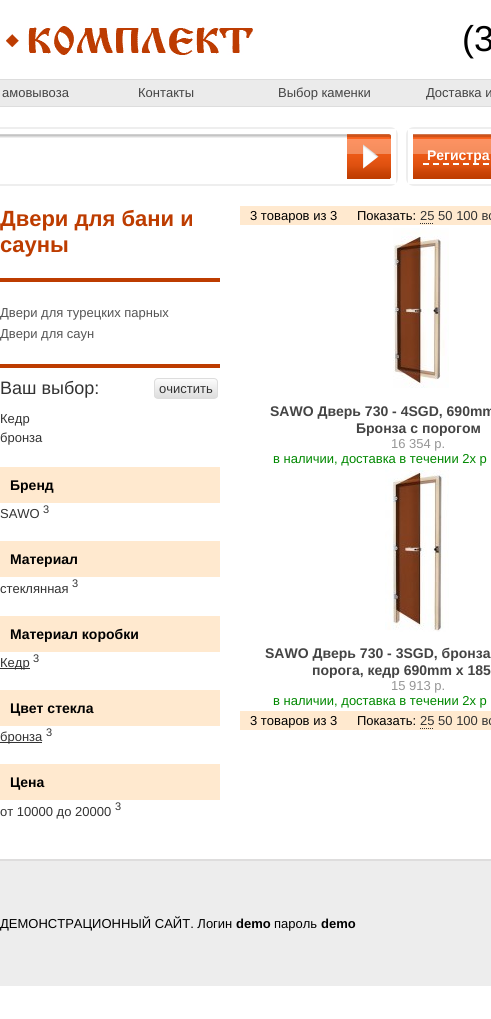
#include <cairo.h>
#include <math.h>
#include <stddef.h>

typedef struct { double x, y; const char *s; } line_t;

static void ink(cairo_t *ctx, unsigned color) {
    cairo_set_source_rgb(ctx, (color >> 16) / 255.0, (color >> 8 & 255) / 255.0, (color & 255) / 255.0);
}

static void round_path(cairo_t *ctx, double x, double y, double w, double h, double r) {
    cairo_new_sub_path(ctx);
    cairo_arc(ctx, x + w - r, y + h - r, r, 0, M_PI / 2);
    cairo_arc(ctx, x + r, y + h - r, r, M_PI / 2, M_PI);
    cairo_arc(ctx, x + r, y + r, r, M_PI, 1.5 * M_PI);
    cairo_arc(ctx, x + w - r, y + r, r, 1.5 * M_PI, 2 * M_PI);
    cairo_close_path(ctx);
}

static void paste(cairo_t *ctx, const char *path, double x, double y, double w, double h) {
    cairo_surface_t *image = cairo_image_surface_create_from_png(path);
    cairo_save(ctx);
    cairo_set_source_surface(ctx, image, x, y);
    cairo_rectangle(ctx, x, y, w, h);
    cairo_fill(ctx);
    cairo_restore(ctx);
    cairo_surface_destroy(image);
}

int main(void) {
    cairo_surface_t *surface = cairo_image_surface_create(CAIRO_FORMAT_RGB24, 491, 1019);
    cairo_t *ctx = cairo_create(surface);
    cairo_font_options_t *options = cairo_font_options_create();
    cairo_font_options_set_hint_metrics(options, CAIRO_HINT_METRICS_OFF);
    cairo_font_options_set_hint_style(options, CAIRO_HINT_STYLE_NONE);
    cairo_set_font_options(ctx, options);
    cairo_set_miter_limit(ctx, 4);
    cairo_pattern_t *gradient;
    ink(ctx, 0xFFFFFF);
    cairo_paint(ctx);
    paste(ctx, "media/1.png", 6, 26, 247, 29);
    cairo_select_font_face(ctx, "Liberation Sans", CAIRO_FONT_SLANT_NORMAL, CAIRO_FONT_WEIGHT_NORMAL);
    cairo_set_font_size(ctx, 36);
    ink(ctx, 0x000000);
    cairo_move_to(ctx, 462, 51);
    cairo_show_text(ctx, "(3");
    ink(ctx, 0xEBEBEB);
    cairo_rectangle(ctx, -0.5, 79.5, 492, 27);
    cairo_fill_preserve(ctx);
    ink(ctx, 0xDDDDDD);
    cairo_set_line_width(ctx, 1);
    cairo_stroke(ctx);
    cairo_set_font_size(ctx, 13);
    ink(ctx, 0x444444);
    {
        static const line_t items[] = {
            {2, 97, "амовывоза"},
            {138, 97, "Контакты"},
            {278, 97, "Выбор каменки"},
            {426, 97, "Доставка и"},
        };
        for (size_t i = 0; i < sizeof items / sizeof *items; i++) {
            cairo_move_to(ctx, items[i].x, items[i].y);
            cairo_show_text(ctx, items[i].s);
        }
    }
    round_path(ctx, -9, 128, 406, 57, 7);
    ink(ctx, 0xEEEEEE);
    cairo_set_line_width(ctx, 2);
    cairo_stroke(ctx);
    cairo_rectangle(ctx, -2.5, 131.5, 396, 50);
    ink(ctx, 0xFFFFFF);
    cairo_set_line_width(ctx, 5);
    cairo_stroke(ctx);
    paste(ctx, "media/2.png", 0, 134, 347, 4);
    paste(ctx, "media/3.png", 347, 134, 44, 45);
    round_path(ctx, 407, 128, 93, 57, 7);
    ink(ctx, 0xEEEEEE);
    cairo_set_line_width(ctx, 2);
    cairo_stroke(ctx);
    paste(ctx, "media/4.png", 413, 134, 78, 45);
    cairo_rectangle(ctx, 410.5, 131.5, 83, 50);
    ink(ctx, 0xFFFFFF);
    cairo_set_line_width(ctx, 5);
    cairo_stroke(ctx);
    cairo_new_path(ctx);
    cairo_move_to(ctx, 423, 164);
    cairo_line_to(ctx, 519, 164);
    cairo_set_line_width(ctx, 2);
    cairo_set_dash(ctx, (double[]){6, 4}, 2, 0);
    cairo_stroke(ctx);
    cairo_select_font_face(ctx, "Liberation Sans", CAIRO_FONT_SLANT_NORMAL, CAIRO_FONT_WEIGHT_BOLD);
    cairo_set_font_size(ctx, 14);
    cairo_move_to(ctx, 427, 160);
    cairo_show_text(ctx, "Регистра");
    cairo_set_font_size(ctx, 22);
    ink(ctx, 0xBD3C00);
    cairo_move_to(ctx, 0, 226);
    cairo_show_text(ctx, "Двери для бани и");
    cairo_move_to(ctx, 0, 252);
    cairo_show_text(ctx, "сауны");
    cairo_rectangle(ctx, 0, 278, 220, 4);
    cairo_fill(ctx);
    cairo_select_font_face(ctx, "Liberation Sans", CAIRO_FONT_SLANT_NORMAL, CAIRO_FONT_WEIGHT_NORMAL);
    cairo_set_font_size(ctx, 13);
    ink(ctx, 0x555555);
    cairo_move_to(ctx, 0, 317);
    cairo_show_text(ctx, "Двери для турецких парных");
    cairo_move_to(ctx, 0, 338);
    cairo_show_text(ctx, "Двери для саун");
    ink(ctx, 0xBD3C00);
    cairo_rectangle(ctx, 0, 364, 220, 4);
    cairo_fill(ctx);
    cairo_set_font_size(ctx, 18);
    ink(ctx, 0x333333);
    cairo_move_to(ctx, 0, 394);
    cairo_show_text(ctx, "Ваш выбор:");
    cairo_save(ctx);
    round_path(ctx, 154, 378, 64, 21, 4);
    cairo_clip(ctx);
    gradient = cairo_pattern_create_linear(186, 379, 186, 398);
    cairo_pattern_add_color_stop_rgba(gradient, 0, 0.988, 0.988, 0.988, 1);
    cairo_pattern_add_color_stop_rgba(gradient, 1, 0.867, 0.867, 0.867, 1);
    cairo_set_source(ctx, gradient);
    cairo_pattern_destroy(gradient);
    cairo_rectangle(ctx, 154, 379, 64, 19);
    cairo_fill(ctx);
    cairo_restore(ctx);
    round_path(ctx, 154.5, 378.5, 63, 20, 3.5);
    ink(ctx, 0xDDDDDD);
    cairo_set_line_width(ctx, 1);
    cairo_set_dash(ctx, NULL, 0, 0);
    cairo_stroke(ctx);
    cairo_set_font_size(ctx, 13);
    ink(ctx, 0x333333);
    {
        static const line_t items[] = {
            {159, 393, "очистить"},
            {0, 423, "Кедр"},
            {0, 442, "бронза"},
        };
        for (size_t i = 0; i < sizeof items / sizeof *items; i++) {
            cairo_move_to(ctx, items[i].x, items[i].y);
            cairo_show_text(ctx, items[i].s);
        }
    }
    ink(ctx, 0xFFE9CF);
    cairo_rectangle(ctx, 0, 467, 220, 36);
    cairo_fill(ctx);
    cairo_select_font_face(ctx, "Liberation Sans", CAIRO_FONT_SLANT_NORMAL, CAIRO_FONT_WEIGHT_BOLD);
    cairo_set_font_size(ctx, 14);
    ink(ctx, 0x000000);
    cairo_move_to(ctx, 10, 490);
    cairo_show_text(ctx, "Бренд");
    cairo_select_font_face(ctx, "Liberation Sans", CAIRO_FONT_SLANT_NORMAL, CAIRO_FONT_WEIGHT_NORMAL);
    cairo_set_font_size(ctx, 13);
    ink(ctx, 0x333333);
    cairo_move_to(ctx, 0, 518);
    cairo_show_text(ctx, "SAWO");
    cairo_set_font_size(ctx, 11);
    cairo_move_to(ctx, 43, 513);
    cairo_show_text(ctx, "3");
    ink(ctx, 0xFFE9CF);
    cairo_rectangle(ctx, 0, 541, 220, 36);
    cairo_fill(ctx);
    cairo_select_font_face(ctx, "Liberation Sans", CAIRO_FONT_SLANT_NORMAL, CAIRO_FONT_WEIGHT_BOLD);
    cairo_set_font_size(ctx, 14);
    ink(ctx, 0x000000);
    cairo_move_to(ctx, 10, 564);
    cairo_show_text(ctx, "Материал");
    cairo_select_font_face(ctx, "Liberation Sans", CAIRO_FONT_SLANT_NORMAL, CAIRO_FONT_WEIGHT_NORMAL);
    cairo_set_font_size(ctx, 11);
    ink(ctx, 0x333333);
    cairo_move_to(ctx, 72, 587);
    cairo_show_text(ctx, "3");
    cairo_set_font_size(ctx, 13);
    cairo_move_to(ctx, 0, 593);
    cairo_show_text(ctx, "стеклянная");
    ink(ctx, 0xFFE9CF);
    cairo_rectangle(ctx, 0, 616, 220, 36);
    cairo_fill(ctx);
    cairo_select_font_face(ctx, "Liberation Sans", CAIRO_FONT_SLANT_NORMAL, CAIRO_FONT_WEIGHT_BOLD);
    cairo_set_font_size(ctx, 14);
    ink(ctx, 0x000000);
    cairo_move_to(ctx, 10, 639);
    cairo_show_text(ctx, "Материал коробки");
    ink(ctx, 0x333333);
    cairo_rectangle(ctx, 0, 668, 30, 1);
    cairo_fill(ctx);
    cairo_select_font_face(ctx, "Liberation Sans", CAIRO_FONT_SLANT_NORMAL, CAIRO_FONT_WEIGHT_NORMAL);
    cairo_set_font_size(ctx, 13);
    cairo_move_to(ctx, 0, 667);
    cairo_show_text(ctx, "Кедр");
    cairo_set_font_size(ctx, 11);
    cairo_move_to(ctx, 33, 662);
    cairo_show_text(ctx, "3");
    ink(ctx, 0xFFE9CF);
    cairo_rectangle(ctx, 0, 690, 220, 36);
    cairo_fill(ctx);
    cairo_select_font_face(ctx, "Liberation Sans", CAIRO_FONT_SLANT_NORMAL, CAIRO_FONT_WEIGHT_BOLD);
    cairo_set_font_size(ctx, 14);
    ink(ctx, 0x000000);
    cairo_move_to(ctx, 10, 713);
    cairo_show_text(ctx, "Цвет стекла");
    ink(ctx, 0x333333);
    cairo_rectangle(ctx, 0, 742, 42, 1);
    cairo_fill(ctx);
    cairo_select_font_face(ctx, "Liberation Sans", CAIRO_FONT_SLANT_NORMAL, CAIRO_FONT_WEIGHT_NORMAL);
    cairo_set_font_size(ctx, 13);
    cairo_move_to(ctx, 0, 741);
    cairo_show_text(ctx, "бронза");
    cairo_set_font_size(ctx, 11);
    cairo_move_to(ctx, 46, 736);
    cairo_show_text(ctx, "3");
    ink(ctx, 0xFFE9CF);
    cairo_rectangle(ctx, 0, 764, 220, 36);
    cairo_fill(ctx);
    cairo_select_font_face(ctx, "Liberation Sans", CAIRO_FONT_SLANT_NORMAL, CAIRO_FONT_WEIGHT_BOLD);
    cairo_set_font_size(ctx, 14);
    ink(ctx, 0x000000);
    cairo_move_to(ctx, 10, 787);
    cairo_show_text(ctx, "Цена");
    cairo_select_font_face(ctx, "Liberation Sans", CAIRO_FONT_SLANT_NORMAL, CAIRO_FONT_WEIGHT_NORMAL);
    cairo_set_font_size(ctx, 13);
    ink(ctx, 0x333333);
    cairo_move_to(ctx, 0, 816);
    cairo_show_text(ctx, "от 10000 до 20000");
    cairo_set_font_size(ctx, 11);
    cairo_move_to(ctx, 115, 810);
    cairo_show_text(ctx, "3");
    ink(ctx, 0xFFE9CF);
    cairo_rectangle(ctx, 240, 206, 251, 19);
    cairo_fill(ctx);
    cairo_set_font_size(ctx, 13);
    ink(ctx, 0x000000);
    cairo_move_to(ctx, 250, 220);
    cairo_show_text(ctx, "3 товаров из 3");
    cairo_move_to(ctx, 357, 220);
    cairo_show_text(ctx, "Показать:");
    ink(ctx, 0x333333);
    cairo_move_to(ctx, 420, 220);
    cairo_show_text(ctx, "25 50 100 вс");
    cairo_new_path(ctx);
    cairo_move_to(ctx, 420, 223.5);
    cairo_line_to(ctx, 434, 223.5);
    cairo_set_dash(ctx, (double[]){1, 1}, 2, 0);
    cairo_stroke(ctx);
    paste(ctx, "media/5.png", 393, 228, 56, 160);
    cairo_select_font_face(ctx, "Liberation Sans", CAIRO_FONT_SLANT_NORMAL, CAIRO_FONT_WEIGHT_BOLD);
    cairo_set_font_size(ctx, 14);
    ink(ctx, 0x444444);
    cairo_move_to(ctx, 270, 416);
    cairo_show_text(ctx, "SAWO Дверь 730 - 4SGD, 690mm");
    cairo_move_to(ctx, 356, 433);
    cairo_show_text(ctx, "Бронза с порогом");
    cairo_select_font_face(ctx, "Liberation Sans", CAIRO_FONT_SLANT_NORMAL, CAIRO_FONT_WEIGHT_NORMAL);
    cairo_set_font_size(ctx, 13);
    ink(ctx, 0x959595);
    cairo_move_to(ctx, 391, 448);
    cairo_show_text(ctx, "16 354 р.");
    ink(ctx, 0x008800);
    cairo_move_to(ctx, 273, 463);
    cairo_show_text(ctx, "в наличии, доставка в течении 2х р");
    paste(ctx, "media/6.png", 385, 470, 64, 162);
    cairo_select_font_face(ctx, "Liberation Sans", CAIRO_FONT_SLANT_NORMAL, CAIRO_FONT_WEIGHT_BOLD);
    cairo_set_font_size(ctx, 14);
    ink(ctx, 0x444444);
    cairo_move_to(ctx, 265, 658);
    cairo_show_text(ctx, "SAWO Дверь 730 - 3SGD, бронза");
    cairo_move_to(ctx, 312, 675);
    cairo_show_text(ctx, "порога, кедр 690mm х 185");
    cairo_select_font_face(ctx, "Liberation Sans", CAIRO_FONT_SLANT_NORMAL, CAIRO_FONT_WEIGHT_NORMAL);
    cairo_set_font_size(ctx, 13);
    ink(ctx, 0x959595);
    cairo_move_to(ctx, 391, 690);
    cairo_show_text(ctx, "15 913 р.");
    ink(ctx, 0x008800);
    cairo_move_to(ctx, 273, 705);
    cairo_show_text(ctx, "в наличии, доставка в течении 2х р");
    ink(ctx, 0xFFE9CF);
    cairo_rectangle(ctx, 240, 711, 251, 19);
    cairo_fill(ctx);
    ink(ctx, 0x000000);
    cairo_move_to(ctx, 250, 725);
    cairo_show_text(ctx, "3 товаров из 3");
    cairo_move_to(ctx, 357, 725);
    cairo_show_text(ctx, "Показать:");
    ink(ctx, 0x333333);
    cairo_move_to(ctx, 420, 725);
    cairo_show_text(ctx, "25 50 100 вс");
    cairo_new_path(ctx);
    cairo_move_to(ctx, 420, 728.5);
    cairo_line_to(ctx, 434, 728.5);
    cairo_stroke(ctx);
    ink(ctx, 0xEDEDED);
    cairo_rectangle(ctx, 0, 861, 491, 125);
    cairo_fill(ctx);
    ink(ctx, 0xDEDDDD);
    cairo_rectangle(ctx, 0, 859, 491, 2);
    cairo_fill(ctx);
    ink(ctx, 0x000000);
    cairo_move_to(ctx, 0, 928);
    cairo_show_text(ctx, "ДЕМОНСТРАЦИОННЫЙ САЙТ. Логин");
    cairo_select_font_face(ctx, "Liberation Sans", CAIRO_FONT_SLANT_NORMAL, CAIRO_FONT_WEIGHT_BOLD);
    cairo_move_to(ctx, 236, 928);
    cairo_show_text(ctx, "demo");
    cairo_select_font_face(ctx, "Liberation Sans", CAIRO_FONT_SLANT_NORMAL, CAIRO_FONT_WEIGHT_NORMAL);
    cairo_move_to(ctx, 274, 928);
    cairo_show_text(ctx, "пароль");
    cairo_select_font_face(ctx, "Liberation Sans", CAIRO_FONT_SLANT_NORMAL, CAIRO_FONT_WEIGHT_BOLD);
    cairo_move_to(ctx, 321, 928);
    cairo_show_text(ctx, "demo");
    cairo_surface_write_to_png(surface, "image.png");
    cairo_font_options_destroy(options);
    cairo_destroy(ctx);
    cairo_surface_destroy(surface);
    return 0;
}
